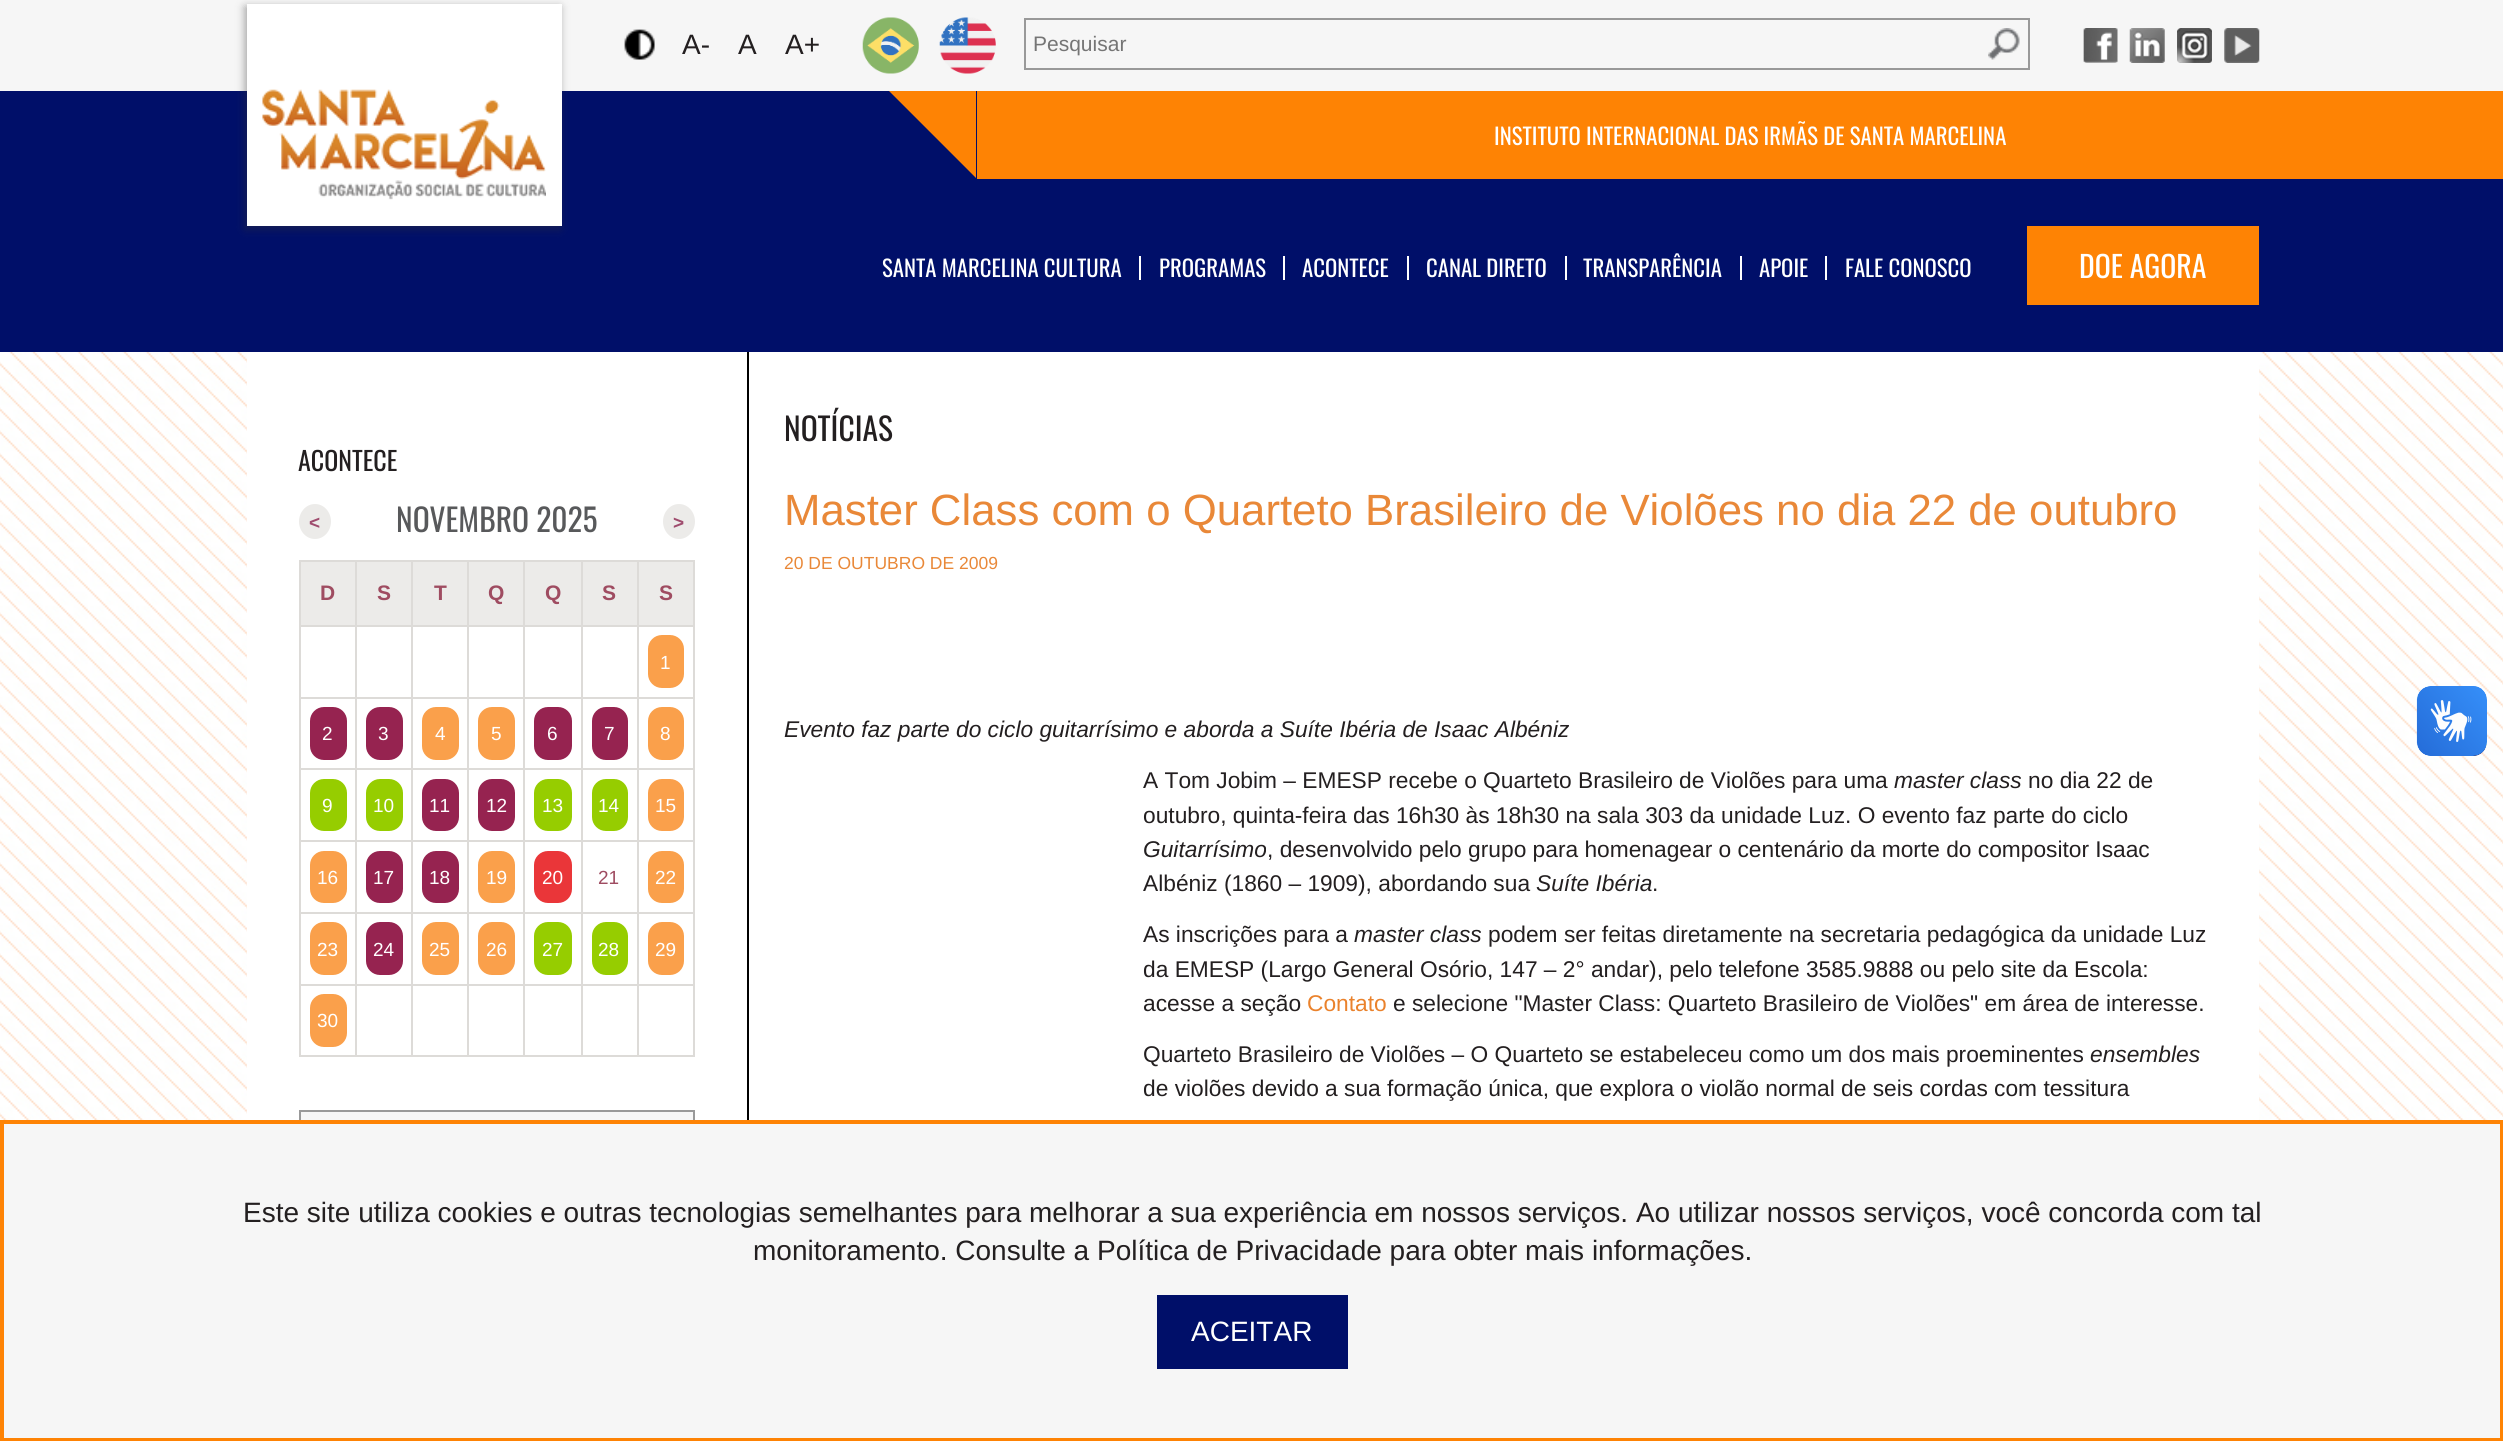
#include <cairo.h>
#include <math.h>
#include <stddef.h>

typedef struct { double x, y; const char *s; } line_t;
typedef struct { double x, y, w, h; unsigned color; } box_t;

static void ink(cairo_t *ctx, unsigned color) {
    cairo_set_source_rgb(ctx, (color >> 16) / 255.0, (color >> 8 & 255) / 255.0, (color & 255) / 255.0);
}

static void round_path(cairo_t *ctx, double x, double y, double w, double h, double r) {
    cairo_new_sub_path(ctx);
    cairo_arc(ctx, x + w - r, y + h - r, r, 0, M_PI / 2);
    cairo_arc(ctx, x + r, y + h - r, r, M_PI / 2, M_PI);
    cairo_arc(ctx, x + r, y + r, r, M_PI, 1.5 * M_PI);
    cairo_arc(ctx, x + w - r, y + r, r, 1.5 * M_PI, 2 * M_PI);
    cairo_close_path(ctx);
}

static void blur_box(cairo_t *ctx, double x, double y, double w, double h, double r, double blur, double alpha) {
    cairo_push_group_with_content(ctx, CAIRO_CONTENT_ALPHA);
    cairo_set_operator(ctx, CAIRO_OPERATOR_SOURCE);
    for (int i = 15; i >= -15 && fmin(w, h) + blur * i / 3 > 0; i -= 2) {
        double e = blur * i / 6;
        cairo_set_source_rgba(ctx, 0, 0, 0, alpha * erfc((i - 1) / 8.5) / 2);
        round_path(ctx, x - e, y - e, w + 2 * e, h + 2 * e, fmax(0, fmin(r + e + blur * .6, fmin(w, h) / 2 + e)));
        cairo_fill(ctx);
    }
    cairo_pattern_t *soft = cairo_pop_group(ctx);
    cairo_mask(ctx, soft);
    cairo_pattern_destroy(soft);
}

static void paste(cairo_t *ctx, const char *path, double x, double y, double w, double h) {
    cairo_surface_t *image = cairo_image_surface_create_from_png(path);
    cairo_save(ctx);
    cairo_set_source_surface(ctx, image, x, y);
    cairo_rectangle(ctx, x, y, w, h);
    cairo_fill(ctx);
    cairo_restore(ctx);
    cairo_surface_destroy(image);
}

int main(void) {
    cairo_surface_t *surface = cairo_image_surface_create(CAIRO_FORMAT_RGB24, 2503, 1441);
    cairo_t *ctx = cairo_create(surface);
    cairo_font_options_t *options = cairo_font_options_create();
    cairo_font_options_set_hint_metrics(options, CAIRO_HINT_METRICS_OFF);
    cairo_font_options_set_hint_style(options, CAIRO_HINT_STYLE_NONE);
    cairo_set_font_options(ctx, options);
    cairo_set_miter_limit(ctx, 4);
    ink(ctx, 0xFFFFFF);
    cairo_paint(ctx);
    paste(ctx, "media/1.png", 0, 352, 2503, 768);
    ink(ctx, 0x000F69);
    cairo_rectangle(ctx, 0, 91, 2503, 261);
    cairo_fill(ctx);
    ink(ctx, 0xF6F6F6);
    cairo_rectangle(ctx, 0, 0, 2503, 91);
    cairo_fill(ctx);
    paste(ctx, "media/2.png", 624, 29, 31, 31);
    cairo_select_font_face(ctx, "Liberation Sans", CAIRO_FONT_SLANT_NORMAL, CAIRO_FONT_WEIGHT_NORMAL);
    cairo_set_font_size(ctx, 28);
    ink(ctx, 0x231F20);
    {
        static const line_t items[] = {
            {682, 54, "A-"},
            {738, 54, "A"},
            {785, 54, "A+"},
        };
        for (size_t i = 0; i < sizeof items / sizeof *items; i++) {
            cairo_move_to(ctx, items[i].x, items[i].y);
            cairo_show_text(ctx, items[i].s);
        }
    }
    paste(ctx, "media/3.png", 862, 17, 57, 57);
    paste(ctx, "media/4.png", 939, 17, 57, 57);
    cairo_rectangle(ctx, 1025, 19, 1004, 50);
    ink(ctx, 0x999999);
    cairo_stroke(ctx);
    cairo_set_font_size(ctx, 21);
    ink(ctx, 0x757575);
    cairo_move_to(ctx, 1033, 51);
    cairo_show_text(ctx, "Pesquisar");
    paste(ctx, "media/5.png", 1988, 28, 32, 32);
    paste(ctx, "media/6.png", 2083, 28, 35, 35);
    paste(ctx, "media/7.png", 2129, 28, 36, 35);
    paste(ctx, "media/8.png", 2177, 28, 35, 35);
    paste(ctx, "media/9.png", 2224, 28, 36, 35);
    ink(ctx, 0xFE8304);
    cairo_rectangle(ctx, 977, 91, 1526, 88);
    cairo_fill(ctx);
    cairo_new_path(ctx);
    cairo_move_to(ctx, 889, 91);
    cairo_line_to(ctx, 976, 91);
    cairo_line_to(ctx, 976, 178);
    cairo_close_path(ctx);
    cairo_fill(ctx);
    cairo_select_font_face(ctx, "Oswald", CAIRO_FONT_SLANT_NORMAL, CAIRO_FONT_WEIGHT_NORMAL);
    cairo_set_font_size(ctx, 22.75);
    ink(ctx, 0xFFFFFF);
    cairo_move_to(ctx, 1494, 145);
    cairo_show_text(ctx, "INSTITUTO INTERNACIONAL DAS IRMÃS DE SANTA MARCELINA");
    ink(ctx, 0x323232);
    blur_box(ctx, 245, 7, 315, 222, 0, 4.5, 0.44);
    ink(ctx, 0xFFFFFF);
    cairo_rectangle(ctx, 247, 4, 315, 222);
    cairo_fill(ctx);
    paste(ctx, "media/10.png", 262, 89, 284, 111);
    cairo_rectangle(ctx, 1139, 256, 2, 24);
    cairo_fill(ctx);
    cairo_move_to(ctx, 882, 277);
    cairo_show_text(ctx, "SANTA MARCELINA CULTURA");
    cairo_rectangle(ctx, 1283, 256, 2, 24);
    cairo_fill(ctx);
    cairo_move_to(ctx, 1159, 277);
    cairo_show_text(ctx, "PROGRAMAS");
    cairo_rectangle(ctx, 1407, 256, 2, 24);
    cairo_fill(ctx);
    cairo_move_to(ctx, 1302, 277);
    cairo_show_text(ctx, "ACONTECE");
    cairo_rectangle(ctx, 1565, 256, 2, 24);
    cairo_fill(ctx);
    cairo_move_to(ctx, 1426, 277);
    cairo_show_text(ctx, "CANAL DIRETO");
    cairo_rectangle(ctx, 1740, 256, 2, 24);
    cairo_fill(ctx);
    cairo_move_to(ctx, 1583, 277);
    cairo_show_text(ctx, "TRANSPARÊNCIA");
    cairo_rectangle(ctx, 1825, 256, 2, 24);
    cairo_fill(ctx);
    cairo_move_to(ctx, 1759, 277);
    cairo_show_text(ctx, "APOIE");
    cairo_move_to(ctx, 1845, 277);
    cairo_show_text(ctx, "FALE CONOSCO");
    ink(ctx, 0xFE8304);
    cairo_rectangle(ctx, 2027, 226, 232, 79);
    cairo_fill(ctx);
    cairo_set_font_size(ctx, 29.75);
    ink(ctx, 0xFFFFFF);
    cairo_move_to(ctx, 2079, 278);
    cairo_show_text(ctx, "DOE AGORA");
    cairo_rectangle(ctx, 247, 352, 2012, 768);
    cairo_fill(ctx);
    ink(ctx, 0x000000);
    cairo_rectangle(ctx, 747, 352, 2, 768);
    cairo_fill(ctx);
    cairo_set_font_size(ctx, 26);
    ink(ctx, 0x231F20);
    cairo_move_to(ctx, 298, 471);
    cairo_show_text(ctx, "ACONTECE");
    cairo_set_font_size(ctx, 31.5);
    ink(ctx, 0x58595B);
    cairo_move_to(ctx, 396, 532);
    cairo_show_text(ctx, "NOVEMBRO 2025");
    ink(ctx, 0xECEBE9);
    cairo_new_path(ctx);
    cairo_move_to(ctx, 315, 504);
    cairo_curve_to(ctx, 324, 504, 331, 512, 331, 521.5);
    cairo_curve_to(ctx, 331, 531, 324, 539, 315, 539);
    cairo_curve_to(ctx, 306, 539, 299, 531, 299, 521.5);
    cairo_curve_to(ctx, 299, 512, 306, 504, 315, 504);
    cairo_close_path(ctx);
    cairo_fill(ctx);
    cairo_select_font_face(ctx, "Liberation Sans", CAIRO_FONT_SLANT_NORMAL, CAIRO_FONT_WEIGHT_BOLD);
    cairo_set_font_size(ctx, 19);
    ink(ctx, 0x9F4C6E);
    cairo_move_to(ctx, 309, 529);
    cairo_show_text(ctx, "<");
    ink(ctx, 0xECEBE9);
    cairo_new_path(ctx);
    cairo_move_to(ctx, 679, 504);
    cairo_curve_to(ctx, 688, 504, 695, 512, 695, 521.5);
    cairo_curve_to(ctx, 695, 531, 688, 539, 679, 539);
    cairo_curve_to(ctx, 670, 539, 663, 531, 663, 521.5);
    cairo_curve_to(ctx, 663, 512, 670, 504, 679, 504);
    cairo_close_path(ctx);
    cairo_fill(ctx);
    ink(ctx, 0x9F4C6E);
    cairo_move_to(ctx, 673, 529);
    cairo_show_text(ctx, ">");
    {
        static const box_t items[] = {
            {301, 562, 54, 63, 0xECEBE9},
            {637, 560, 58, 2, 0xDDDBD8},
            {637, 625, 58, 2, 0xDDDBD8},
            {637, 697, 58, 2, 0xDDDBD8},
            {637, 768, 58, 2, 0xDDDBD8},
            {637, 840, 58, 2, 0xDDDBD8},
            {637, 912, 58, 2, 0xDDDBD8},
            {637, 984, 58, 2, 0xDDDBD8},
            {693, 984, 2, 73, 0xDDDBD8},
            {637, 1055, 58, 2, 0xDDDBD8},
            {637, 984, 2, 73, 0xDDDBD8},
            {581, 984, 58, 2, 0xDDDBD8},
            {637, 912, 2, 73, 0xDDDBD8},
            {581, 912, 58, 2, 0xDDDBD8},
            {637, 840, 2, 74, 0xDDDBD8},
            {581, 840, 58, 2, 0xDDDBD8},
            {637, 768, 2, 74, 0xDDDBD8},
            {581, 768, 58, 2, 0xDDDBD8},
            {637, 697, 2, 73, 0xDDDBD8},
            {581, 697, 58, 2, 0xDDDBD8},
            {637, 625, 2, 73, 0xDDDBD8},
            {581, 625, 58, 2, 0xDDDBD8},
            {637, 560, 2, 67, 0xDDDBD8},
            {581, 560, 58, 2, 0xDDDBD8},
            {581, 1055, 58, 2, 0xDDDBD8},
            {581, 984, 2, 73, 0xDDDBD8},
            {523, 984, 60, 2, 0xDDDBD8},
            {581, 912, 2, 73, 0xDDDBD8},
            {523, 912, 60, 2, 0xDDDBD8},
            {581, 840, 2, 74, 0xDDDBD8},
            {523, 840, 60, 2, 0xDDDBD8},
            {581, 768, 2, 74, 0xDDDBD8},
            {523, 768, 60, 2, 0xDDDBD8},
            {581, 697, 2, 73, 0xDDDBD8},
            {523, 697, 60, 2, 0xDDDBD8},
            {581, 625, 2, 73, 0xDDDBD8},
            {523, 625, 60, 2, 0xDDDBD8},
            {581, 560, 2, 67, 0xDDDBD8},
            {523, 560, 60, 2, 0xDDDBD8},
            {523, 1055, 60, 2, 0xDDDBD8},
            {523, 984, 2, 73, 0xDDDBD8},
            {467, 984, 58, 2, 0xDDDBD8},
            {523, 912, 2, 73, 0xDDDBD8},
            {467, 912, 58, 2, 0xDDDBD8},
            {523, 840, 2, 74, 0xDDDBD8},
            {467, 840, 58, 2, 0xDDDBD8},
            {523, 768, 2, 74, 0xDDDBD8},
            {467, 768, 58, 2, 0xDDDBD8},
            {523, 697, 2, 73, 0xDDDBD8},
            {467, 697, 58, 2, 0xDDDBD8},
            {523, 625, 2, 73, 0xDDDBD8},
            {467, 625, 58, 2, 0xDDDBD8},
            {523, 560, 2, 67, 0xDDDBD8},
            {467, 560, 58, 2, 0xDDDBD8},
            {467, 1055, 58, 2, 0xDDDBD8},
            {467, 984, 2, 73, 0xDDDBD8},
            {411, 984, 58, 2, 0xDDDBD8},
            {467, 912, 2, 73, 0xDDDBD8},
            {411, 912, 58, 2, 0xDDDBD8},
            {467, 840, 2, 74, 0xDDDBD8},
            {411, 840, 58, 2, 0xDDDBD8},
            {467, 768, 2, 74, 0xDDDBD8},
            {411, 768, 58, 2, 0xDDDBD8},
            {467, 697, 2, 73, 0xDDDBD8},
            {411, 697, 58, 2, 0xDDDBD8},
            {467, 625, 2, 73, 0xDDDBD8},
            {411, 625, 58, 2, 0xDDDBD8},
            {467, 560, 2, 67, 0xDDDBD8},
            {411, 560, 58, 2, 0xDDDBD8},
            {411, 1055, 58, 2, 0xDDDBD8},
            {411, 984, 2, 73, 0xDDDBD8},
            {355, 984, 58, 2, 0xDDDBD8},
            {411, 912, 2, 73, 0xDDDBD8},
            {355, 912, 58, 2, 0xDDDBD8},
            {411, 840, 2, 74, 0xDDDBD8},
            {355, 840, 58, 2, 0xDDDBD8},
            {411, 768, 2, 74, 0xDDDBD8},
            {355, 768, 58, 2, 0xDDDBD8},
            {411, 697, 2, 73, 0xDDDBD8},
            {355, 697, 58, 2, 0xDDDBD8},
            {411, 625, 2, 73, 0xDDDBD8},
            {355, 625, 58, 2, 0xDDDBD8},
            {411, 560, 2, 67, 0xDDDBD8},
            {355, 560, 58, 2, 0xDDDBD8},
            {355, 1055, 58, 2, 0xDDDBD8},
            {355, 984, 2, 73, 0xDDDBD8},
            {299, 984, 58, 2, 0xDDDBD8},
            {355, 912, 2, 73, 0xDDDBD8},
            {299, 912, 58, 2, 0xDDDBD8},
            {355, 840, 2, 74, 0xDDDBD8},
            {299, 840, 58, 2, 0xDDDBD8},
            {355, 768, 2, 74, 0xDDDBD8},
            {299, 768, 58, 2, 0xDDDBD8},
            {355, 697, 2, 73, 0xDDDBD8},
            {299, 697, 58, 2, 0xDDDBD8},
            {355, 625, 2, 73, 0xDDDBD8},
            {299, 625, 58, 2, 0xDDDBD8},
            {355, 560, 2, 67, 0xDDDBD8},
            {299, 560, 58, 2, 0xDDDBD8},
            {299, 1055, 58, 2, 0xDDDBD8},
            {299, 984, 2, 73, 0xDDDBD8},
            {299, 912, 2, 73, 0xDDDBD8},
            {299, 840, 2, 74, 0xDDDBD8},
            {299, 768, 2, 74, 0xDDDBD8},
            {299, 697, 2, 73, 0xDDDBD8},
            {299, 625, 2, 73, 0xDDDBD8},
            {299, 560, 2, 67, 0xDDDBD8},
        };
        for (size_t i = 0; i < sizeof items / sizeof *items; i++) {
            ink(ctx, items[i].color);
            cairo_rectangle(ctx, items[i].x, items[i].y, items[i].w, items[i].h);
            cairo_fill(ctx);
        }
    }
    cairo_set_font_size(ctx, 21);
    ink(ctx, 0x9F4C61);
    cairo_move_to(ctx, 320, 600);
    cairo_show_text(ctx, "D");
    ink(ctx, 0xECEBE9);
    cairo_rectangle(ctx, 357, 562, 54, 63);
    cairo_fill(ctx);
    ink(ctx, 0x9F4C61);
    cairo_move_to(ctx, 377, 600);
    cairo_show_text(ctx, "S");
    ink(ctx, 0xECEBE9);
    cairo_rectangle(ctx, 413, 562, 54, 63);
    cairo_fill(ctx);
    ink(ctx, 0x9F4C61);
    cairo_move_to(ctx, 434, 600);
    cairo_show_text(ctx, "T");
    ink(ctx, 0xECEBE9);
    cairo_rectangle(ctx, 469, 562, 54, 63);
    cairo_fill(ctx);
    ink(ctx, 0x9F4C61);
    cairo_move_to(ctx, 488, 600);
    cairo_show_text(ctx, "Q");
    ink(ctx, 0xECEBE9);
    cairo_rectangle(ctx, 525, 562, 56, 63);
    cairo_fill(ctx);
    ink(ctx, 0x9F4C61);
    cairo_move_to(ctx, 545, 600);
    cairo_show_text(ctx, "Q");
    ink(ctx, 0xECEBE9);
    cairo_rectangle(ctx, 583, 562, 54, 63);
    cairo_fill(ctx);
    ink(ctx, 0x9F4C61);
    cairo_move_to(ctx, 602, 600);
    cairo_show_text(ctx, "S");
    {
        static const box_t items[] = {
            {639, 562, 54, 63, 0xECEBE9},
            {693, 912, 2, 73, 0xDDDBD8},
            {693, 840, 2, 74, 0xDDDBD8},
            {693, 768, 2, 74, 0xDDDBD8},
            {693, 697, 2, 73, 0xDDDBD8},
            {693, 625, 2, 73, 0xDDDBD8},
            {693, 560, 2, 67, 0xDDDBD8},
        };
        for (size_t i = 0; i < sizeof items / sizeof *items; i++) {
            ink(ctx, items[i].color);
            cairo_rectangle(ctx, items[i].x, items[i].y, items[i].w, items[i].h);
            cairo_fill(ctx);
        }
    }
    ink(ctx, 0x9F4C61);
    cairo_move_to(ctx, 659, 600);
    cairo_show_text(ctx, "S");
    ink(ctx, 0xFAA04B);
    round_path(ctx, 648, 635, 36, 53, 14);
    cairo_fill(ctx);
    cairo_select_font_face(ctx, "Liberation Sans", CAIRO_FONT_SLANT_NORMAL, CAIRO_FONT_WEIGHT_NORMAL);
    cairo_set_font_size(ctx, 19);
    ink(ctx, 0xFFFFFF);
    cairo_move_to(ctx, 660, 669);
    cairo_show_text(ctx, "1");
    ink(ctx, 0x962350);
    round_path(ctx, 310, 707, 37, 53, 14);
    cairo_fill(ctx);
    ink(ctx, 0xFFFFFF);
    cairo_move_to(ctx, 322, 740);
    cairo_show_text(ctx, "2");
    ink(ctx, 0x962350);
    round_path(ctx, 366, 707, 37, 53, 14);
    cairo_fill(ctx);
    ink(ctx, 0xFFFFFF);
    cairo_move_to(ctx, 378, 740);
    cairo_show_text(ctx, "3");
    ink(ctx, 0xFAA04B);
    round_path(ctx, 422, 707, 37, 53, 14);
    cairo_fill(ctx);
    ink(ctx, 0xFFFFFF);
    cairo_move_to(ctx, 435, 740);
    cairo_show_text(ctx, "4");
    ink(ctx, 0xFAA04B);
    round_path(ctx, 478, 707, 37, 53, 14);
    cairo_fill(ctx);
    ink(ctx, 0xFFFFFF);
    cairo_move_to(ctx, 491, 740);
    cairo_show_text(ctx, "5");
    ink(ctx, 0x962350);
    round_path(ctx, 534, 707, 38, 53, 14);
    cairo_fill(ctx);
    ink(ctx, 0xFFFFFF);
    cairo_move_to(ctx, 547, 740);
    cairo_show_text(ctx, "6");
    ink(ctx, 0x962350);
    round_path(ctx, 592, 707, 36, 53, 14);
    cairo_fill(ctx);
    ink(ctx, 0xFFFFFF);
    cairo_move_to(ctx, 604, 740);
    cairo_show_text(ctx, "7");
    ink(ctx, 0xFAA04B);
    round_path(ctx, 648, 707, 36, 53, 14);
    cairo_fill(ctx);
    ink(ctx, 0xFFFFFF);
    cairo_move_to(ctx, 660, 740);
    cairo_show_text(ctx, "8");
    ink(ctx, 0x96CD00);
    round_path(ctx, 310, 779, 37, 52, 14);
    cairo_fill(ctx);
    ink(ctx, 0xFFFFFF);
    cairo_move_to(ctx, 322, 812);
    cairo_show_text(ctx, "9");
    ink(ctx, 0x96CD00);
    round_path(ctx, 366, 779, 37, 52, 14);
    cairo_fill(ctx);
    ink(ctx, 0xFFFFFF);
    cairo_move_to(ctx, 373, 812);
    cairo_show_text(ctx, "10");
    ink(ctx, 0x962350);
    round_path(ctx, 422, 779, 37, 52, 14);
    cairo_fill(ctx);
    ink(ctx, 0xFFFFFF);
    cairo_move_to(ctx, 429, 812);
    cairo_show_text(ctx, "11");
    ink(ctx, 0x962350);
    round_path(ctx, 478, 779, 37, 52, 14);
    cairo_fill(ctx);
    ink(ctx, 0xFFFFFF);
    cairo_move_to(ctx, 486, 812);
    cairo_show_text(ctx, "12");
    ink(ctx, 0x96CD00);
    round_path(ctx, 534, 779, 38, 52, 14);
    cairo_fill(ctx);
    ink(ctx, 0xFFFFFF);
    cairo_move_to(ctx, 542, 812);
    cairo_show_text(ctx, "13");
    ink(ctx, 0x96CD00);
    round_path(ctx, 592, 779, 36, 52, 14);
    cairo_fill(ctx);
    ink(ctx, 0xFFFFFF);
    cairo_move_to(ctx, 598, 812);
    cairo_show_text(ctx, "14");
    ink(ctx, 0xFAA04B);
    round_path(ctx, 648, 779, 36, 52, 14);
    cairo_fill(ctx);
    ink(ctx, 0xFFFFFF);
    cairo_move_to(ctx, 655, 812);
    cairo_show_text(ctx, "15");
    ink(ctx, 0xFAA04B);
    round_path(ctx, 310, 851, 37, 52, 14);
    cairo_fill(ctx);
    ink(ctx, 0xFFFFFF);
    cairo_move_to(ctx, 317, 884);
    cairo_show_text(ctx, "16");
    ink(ctx, 0x962350);
    round_path(ctx, 366, 851, 37, 52, 14);
    cairo_fill(ctx);
    ink(ctx, 0xFFFFFF);
    cairo_move_to(ctx, 373, 884);
    cairo_show_text(ctx, "17");
    ink(ctx, 0x962350);
    round_path(ctx, 422, 851, 37, 52, 14);
    cairo_fill(ctx);
    ink(ctx, 0xFFFFFF);
    cairo_move_to(ctx, 429, 884);
    cairo_show_text(ctx, "18");
    ink(ctx, 0xFAA04B);
    round_path(ctx, 478, 851, 37, 52, 14);
    cairo_fill(ctx);
    ink(ctx, 0xFFFFFF);
    cairo_move_to(ctx, 486, 884);
    cairo_show_text(ctx, "19");
    ink(ctx, 0xEA3639);
    round_path(ctx, 534, 851, 38, 52, 14);
    cairo_fill(ctx);
    ink(ctx, 0xFFFFFF);
    cairo_move_to(ctx, 542, 884);
    cairo_show_text(ctx, "20");
    ink(ctx, 0x9F4C61);
    cairo_move_to(ctx, 598, 884);
    cairo_show_text(ctx, "21");
    ink(ctx, 0xFAA04B);
    round_path(ctx, 648, 851, 36, 52, 14);
    cairo_fill(ctx);
    ink(ctx, 0xFFFFFF);
    cairo_move_to(ctx, 655, 884);
    cairo_show_text(ctx, "22");
    ink(ctx, 0xFAA04B);
    round_path(ctx, 310, 922, 37, 53, 14);
    cairo_fill(ctx);
    ink(ctx, 0xFFFFFF);
    cairo_move_to(ctx, 317, 956);
    cairo_show_text(ctx, "23");
    ink(ctx, 0x962350);
    round_path(ctx, 366, 922, 37, 53, 14);
    cairo_fill(ctx);
    ink(ctx, 0xFFFFFF);
    cairo_move_to(ctx, 373, 956);
    cairo_show_text(ctx, "24");
    ink(ctx, 0xFAA04B);
    round_path(ctx, 422, 922, 37, 53, 14);
    cairo_fill(ctx);
    ink(ctx, 0xFFFFFF);
    cairo_move_to(ctx, 429, 956);
    cairo_show_text(ctx, "25");
    ink(ctx, 0xFAA04B);
    round_path(ctx, 478, 922, 37, 53, 14);
    cairo_fill(ctx);
    ink(ctx, 0xFFFFFF);
    cairo_move_to(ctx, 486, 956);
    cairo_show_text(ctx, "26");
    ink(ctx, 0x96CD00);
    round_path(ctx, 534, 922, 38, 53, 14);
    cairo_fill(ctx);
    ink(ctx, 0xFFFFFF);
    cairo_move_to(ctx, 542, 956);
    cairo_show_text(ctx, "27");
    ink(ctx, 0x96CD00);
    round_path(ctx, 592, 922, 36, 53, 14);
    cairo_fill(ctx);
    ink(ctx, 0xFFFFFF);
    cairo_move_to(ctx, 598, 956);
    cairo_show_text(ctx, "28");
    ink(ctx, 0xFAA04B);
    round_path(ctx, 648, 922, 36, 53, 14);
    cairo_fill(ctx);
    ink(ctx, 0xFFFFFF);
    cairo_move_to(ctx, 655, 956);
    cairo_show_text(ctx, "29");
    ink(ctx, 0xFAA04B);
    round_path(ctx, 310, 994, 37, 53, 14);
    cairo_fill(ctx);
    ink(ctx, 0xFFFFFF);
    cairo_move_to(ctx, 317, 1027);
    cairo_show_text(ctx, "30");
    ink(ctx, 0xF6F6F6);
    cairo_rectangle(ctx, 301, 1112, 392, 8);
    cairo_fill(ctx);
    cairo_rectangle(ctx, 300, 1111, 394, 50);
    ink(ctx, 0x999999);
    cairo_stroke(ctx);
    cairo_select_font_face(ctx, "Oswald", CAIRO_FONT_SLANT_NORMAL, CAIRO_FONT_WEIGHT_NORMAL);
    cairo_set_font_size(ctx, 31.5);
    ink(ctx, 0x231F20);
    cairo_move_to(ctx, 784, 441);
    cairo_show_text(ctx, "NOTÍCIAS");
    cairo_select_font_face(ctx, "Liberation Sans", CAIRO_FONT_SLANT_NORMAL, CAIRO_FONT_WEIGHT_NORMAL);
    cairo_set_font_size(ctx, 43.75);
    ink(ctx, 0xE98838);
    cairo_move_to(ctx, 784, 525);
    cairo_show_text(ctx, "Master Class com o Quarteto Brasileiro de Violões no dia 22 de outubro");
    cairo_set_font_size(ctx, 17.5);
    cairo_move_to(ctx, 784, 569);
    cairo_show_text(ctx, "20 DE OUTUBRO DE 2009");
    cairo_select_font_face(ctx, "Liberation Sans", CAIRO_FONT_SLANT_ITALIC, CAIRO_FONT_WEIGHT_NORMAL);
    cairo_set_font_size(ctx, 22.75);
    ink(ctx, 0x231F20);
    cairo_move_to(ctx, 784, 737);
    cairo_show_text(ctx, "Evento faz parte do ciclo guitarrísimo e aborda a Suíte Ibéria de Isaac Albéniz");
    cairo_select_font_face(ctx, "Liberation Sans", CAIRO_FONT_SLANT_NORMAL, CAIRO_FONT_WEIGHT_NORMAL);
    cairo_move_to(ctx, 1143, 788);
    cairo_show_text(ctx, "A Tom Jobim – EMESP recebe o Quarteto Brasileiro de Violões para uma");
    cairo_select_font_face(ctx, "Liberation Sans", CAIRO_FONT_SLANT_ITALIC, CAIRO_FONT_WEIGHT_NORMAL);
    cairo_move_to(ctx, 1894, 788);
    cairo_show_text(ctx, "master class");
    cairo_select_font_face(ctx, "Liberation Sans", CAIRO_FONT_SLANT_NORMAL, CAIRO_FONT_WEIGHT_NORMAL);
    cairo_move_to(ctx, 2028, 788);
    cairo_show_text(ctx, "no dia 22 de");
    cairo_move_to(ctx, 1143, 823);
    cairo_show_text(ctx, "outubro, quinta-feira das 16h30 às 18h30 na sala 303 da unidade Luz. O evento faz parte do ciclo");
    cairo_select_font_face(ctx, "Liberation Sans", CAIRO_FONT_SLANT_ITALIC, CAIRO_FONT_WEIGHT_NORMAL);
    cairo_move_to(ctx, 1143, 857);
    cairo_show_text(ctx, "Guitarrísimo");
    cairo_select_font_face(ctx, "Liberation Sans", CAIRO_FONT_SLANT_NORMAL, CAIRO_FONT_WEIGHT_NORMAL);
    cairo_move_to(ctx, 1267, 857);
    cairo_show_text(ctx, ", desenvolvido pelo grupo para homenagear o centenário da morte do compositor Isaac");
    cairo_move_to(ctx, 1143, 891);
    cairo_show_text(ctx, "Albéniz (1860 – 1909), abordando sua");
    cairo_select_font_face(ctx, "Liberation Sans", CAIRO_FONT_SLANT_ITALIC, CAIRO_FONT_WEIGHT_NORMAL);
    cairo_move_to(ctx, 1536, 891);
    cairo_show_text(ctx, "Suíte Ibéria");
    cairo_select_font_face(ctx, "Liberation Sans", CAIRO_FONT_SLANT_NORMAL, CAIRO_FONT_WEIGHT_NORMAL);
    cairo_move_to(ctx, 1652, 891);
    cairo_show_text(ctx, ".");
    cairo_move_to(ctx, 1143, 942);
    cairo_show_text(ctx, "As inscrições para a");
    cairo_select_font_face(ctx, "Liberation Sans", CAIRO_FONT_SLANT_ITALIC, CAIRO_FONT_WEIGHT_NORMAL);
    cairo_move_to(ctx, 1354, 942);
    cairo_show_text(ctx, "master class");
    cairo_select_font_face(ctx, "Liberation Sans", CAIRO_FONT_SLANT_NORMAL, CAIRO_FONT_WEIGHT_NORMAL);
    {
        static const line_t items[] = {
            {1488, 942, "podem ser feitas diretamente na secretaria pedagógica da unidade Luz"},
            {1143, 977, "da EMESP (Largo General Osório, 147 – 2° andar), pelo telefone 3585.9888 ou pelo site da Escola:"},
            {1143, 1011, "acesse a seção"},
        };
        for (size_t i = 0; i < sizeof items / sizeof *items; i++) {
            cairo_move_to(ctx, items[i].x, items[i].y);
            cairo_show_text(ctx, items[i].s);
        }
    }
    ink(ctx, 0xEA822C);
    cairo_move_to(ctx, 1307, 1011);
    cairo_show_text(ctx, "Contato");
    ink(ctx, 0x231F20);
    cairo_move_to(ctx, 1393, 1011);
    cairo_show_text(ctx, "e selecione \"Master Class: Quarteto Brasileiro de Violões\" em área de interesse.");
    cairo_move_to(ctx, 1143, 1062);
    cairo_show_text(ctx, "Quarteto Brasileiro de Violões – O Quarteto se estabeleceu como um dos mais proeminentes");
    cairo_select_font_face(ctx, "Liberation Sans", CAIRO_FONT_SLANT_ITALIC, CAIRO_FONT_WEIGHT_NORMAL);
    cairo_move_to(ctx, 2090, 1062);
    cairo_show_text(ctx, "ensembles");
    cairo_select_font_face(ctx, "Liberation Sans", CAIRO_FONT_SLANT_NORMAL, CAIRO_FONT_WEIGHT_NORMAL);
    cairo_move_to(ctx, 1143, 1096);
    cairo_show_text(ctx, "de violões devido a sua formação única, que explora o violão normal de seis cordas com tessitura");
    paste(ctx, "media/11.png", 2416, 686, 71, 70);
    paste(ctx, "media/12.png", 2417, 686, 70, 70);
    ink(ctx, 0xF6F6F6);
    cairo_rectangle(ctx, 2, 1122, 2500, 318);
    cairo_fill_preserve(ctx);
    ink(ctx, 0xFE8304);
    cairo_set_line_width(ctx, 4);
    cairo_stroke(ctx);
    cairo_set_font_size(ctx, 28);
    ink(ctx, 0x231F20);
    cairo_move_to(ctx, 243, 1222);
    cairo_show_text(ctx, "Este site utiliza cookies e outras tecnologias semelhantes para melhorar a sua experiência em nossos serviços. Ao utilizar nossos serviços, você concorda com tal");
    cairo_move_to(ctx, 753, 1260);
    cairo_show_text(ctx, "monitoramento. Consulte a Política de Privacidade para obter mais informações.");
    ink(ctx, 0x000F69);
    cairo_rectangle(ctx, 1157, 1295, 191, 74);
    cairo_fill(ctx);
    ink(ctx, 0xFFFFFF);
    cairo_move_to(ctx, 1191, 1341);
    cairo_show_text(ctx, "ACEITAR");
    cairo_surface_write_to_png(surface, "image.png");
    cairo_font_options_destroy(options);
    cairo_destroy(ctx);
    cairo_surface_destroy(surface);
    return 0;
}
